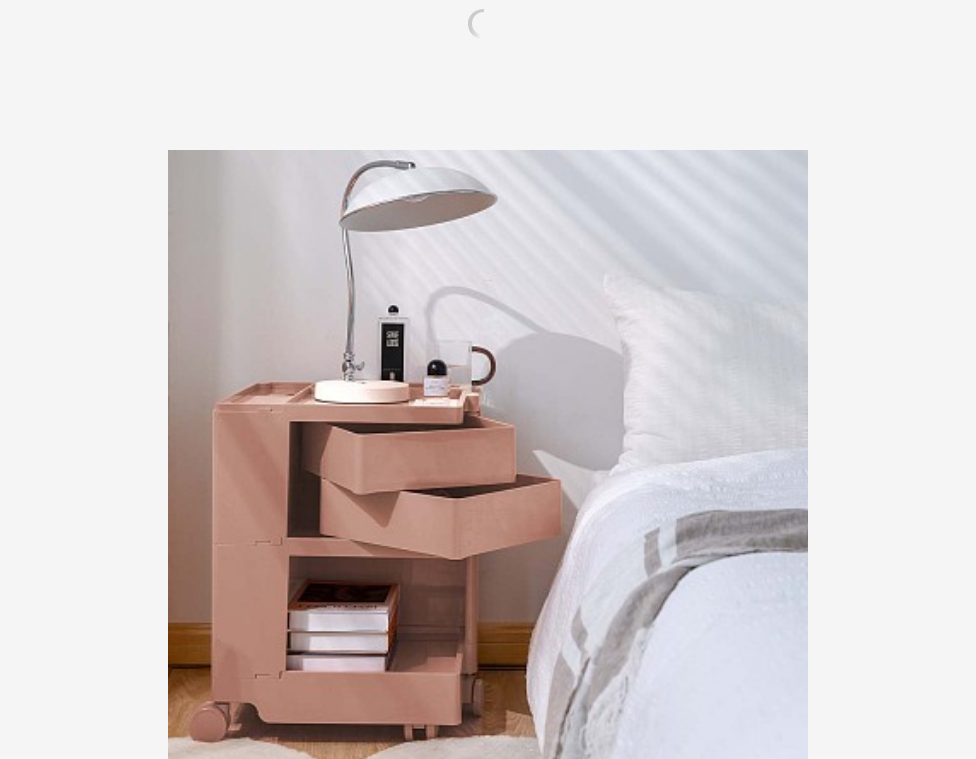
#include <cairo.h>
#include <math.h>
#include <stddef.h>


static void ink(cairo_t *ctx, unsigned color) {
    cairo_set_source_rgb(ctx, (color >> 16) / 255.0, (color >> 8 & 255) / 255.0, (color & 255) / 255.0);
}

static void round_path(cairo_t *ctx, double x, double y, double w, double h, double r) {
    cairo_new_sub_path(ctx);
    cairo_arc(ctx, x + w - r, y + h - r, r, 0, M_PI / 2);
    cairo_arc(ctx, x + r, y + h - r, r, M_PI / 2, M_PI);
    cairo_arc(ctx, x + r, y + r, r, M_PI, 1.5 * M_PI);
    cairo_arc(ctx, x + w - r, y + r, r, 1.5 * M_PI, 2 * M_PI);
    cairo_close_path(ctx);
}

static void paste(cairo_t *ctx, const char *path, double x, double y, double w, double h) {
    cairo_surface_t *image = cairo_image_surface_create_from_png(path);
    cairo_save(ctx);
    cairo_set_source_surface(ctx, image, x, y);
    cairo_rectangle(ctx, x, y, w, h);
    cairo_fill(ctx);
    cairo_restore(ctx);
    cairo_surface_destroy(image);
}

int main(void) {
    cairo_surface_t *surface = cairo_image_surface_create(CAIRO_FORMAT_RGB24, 976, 759);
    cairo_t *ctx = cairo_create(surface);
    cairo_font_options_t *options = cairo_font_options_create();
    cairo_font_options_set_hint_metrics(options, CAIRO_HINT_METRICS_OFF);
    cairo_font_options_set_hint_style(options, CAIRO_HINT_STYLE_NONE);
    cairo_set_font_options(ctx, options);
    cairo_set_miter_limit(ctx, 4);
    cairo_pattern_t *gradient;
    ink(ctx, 0xF5F5F5);
    cairo_paint(ctx);
    gradient = cairo_pattern_create_linear(468, 24, 499, 24);
    cairo_pattern_add_color_stop_rgba(gradient, 0.1, 0.8, 0.8, 0.8, 1);
    cairo_pattern_add_color_stop_rgba(gradient, 0.42, 0.961, 0.961, 0.961, 1);
    cairo_set_source(ctx, gradient);
    cairo_pattern_destroy(gradient);
    round_path(ctx, 468, 9, 31, 30, 15);
    cairo_fill(ctx);
    ink(ctx, 0xCCCCCC);
    cairo_new_path(ctx);
    cairo_move_to(ctx, 484, 9);
    cairo_line_to(ctx, 484, 24);
    cairo_line_to(ctx, 468, 24);
    cairo_curve_to(ctx, 468, 15.5, 475, 9, 484, 9);
    cairo_close_path(ctx);
    cairo_fill(ctx);
    ink(ctx, 0xF5F5F5);
    cairo_arc(ctx, 483.5, 23.5, 11.5, 0, 2 * M_PI);
    cairo_fill(ctx);
    paste(ctx, "media/1.png", 168, 150, 640, 609);
    cairo_surface_write_to_png(surface, "image.png");
    cairo_font_options_destroy(options);
    cairo_destroy(ctx);
    cairo_surface_destroy(surface);
    return 0;
}
